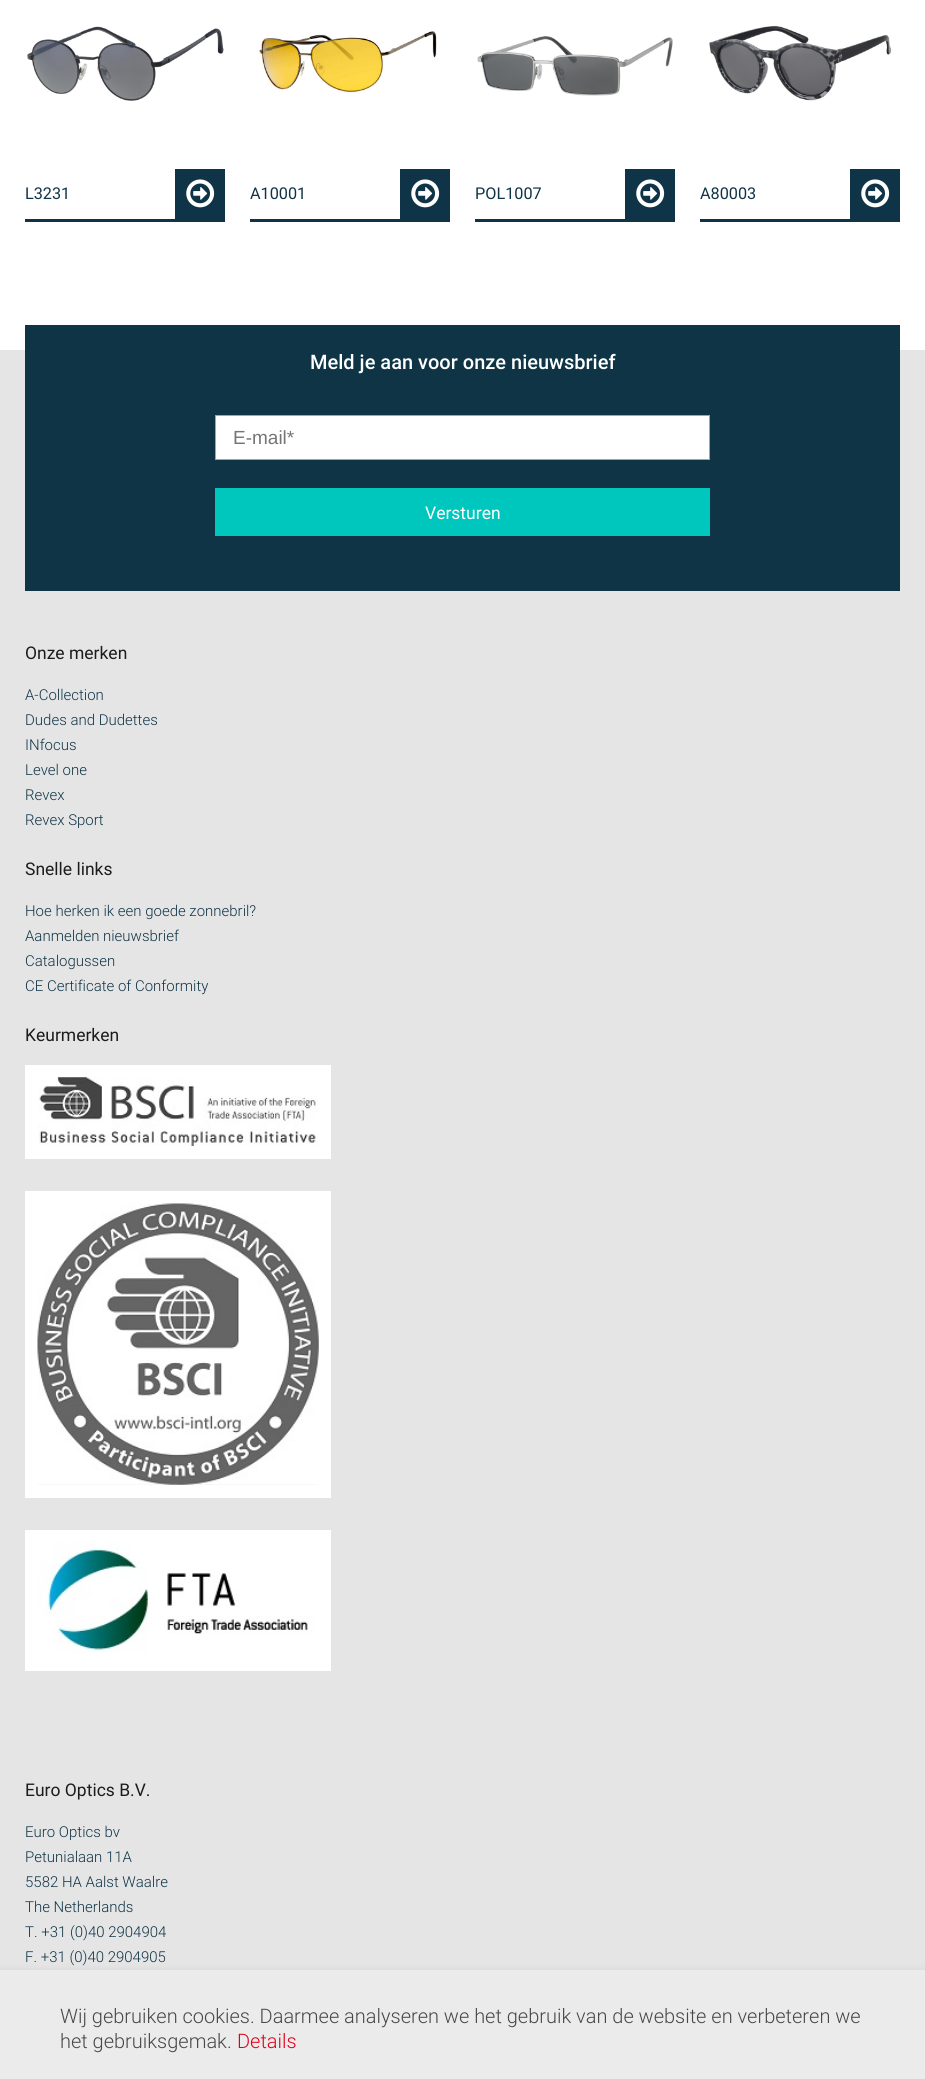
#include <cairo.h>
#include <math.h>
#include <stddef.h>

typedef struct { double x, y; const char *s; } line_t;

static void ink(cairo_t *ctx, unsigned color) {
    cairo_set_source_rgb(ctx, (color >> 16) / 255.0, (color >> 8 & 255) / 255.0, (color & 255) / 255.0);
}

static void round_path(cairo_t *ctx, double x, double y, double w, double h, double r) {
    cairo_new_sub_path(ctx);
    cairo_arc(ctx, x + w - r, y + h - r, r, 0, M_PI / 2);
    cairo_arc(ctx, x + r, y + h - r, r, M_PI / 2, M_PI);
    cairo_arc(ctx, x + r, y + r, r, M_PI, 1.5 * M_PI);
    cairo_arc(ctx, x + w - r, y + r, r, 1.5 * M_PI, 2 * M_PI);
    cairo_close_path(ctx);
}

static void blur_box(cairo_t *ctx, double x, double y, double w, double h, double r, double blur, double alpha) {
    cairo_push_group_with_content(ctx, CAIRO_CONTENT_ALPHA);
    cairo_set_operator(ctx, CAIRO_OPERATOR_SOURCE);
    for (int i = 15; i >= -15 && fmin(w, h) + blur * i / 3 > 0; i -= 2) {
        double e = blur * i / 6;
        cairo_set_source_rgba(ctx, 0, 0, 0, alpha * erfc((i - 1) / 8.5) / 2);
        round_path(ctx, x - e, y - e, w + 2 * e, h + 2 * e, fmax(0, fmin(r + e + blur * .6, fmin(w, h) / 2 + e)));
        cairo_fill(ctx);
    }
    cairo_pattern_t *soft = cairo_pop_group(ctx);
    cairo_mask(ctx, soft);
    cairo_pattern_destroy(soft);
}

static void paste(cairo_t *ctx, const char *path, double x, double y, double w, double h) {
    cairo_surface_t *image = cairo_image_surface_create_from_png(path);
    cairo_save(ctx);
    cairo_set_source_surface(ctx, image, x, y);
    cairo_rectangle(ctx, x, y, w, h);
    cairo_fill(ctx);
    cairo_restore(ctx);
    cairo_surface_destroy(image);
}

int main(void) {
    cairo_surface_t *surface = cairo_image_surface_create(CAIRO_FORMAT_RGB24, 925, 2079);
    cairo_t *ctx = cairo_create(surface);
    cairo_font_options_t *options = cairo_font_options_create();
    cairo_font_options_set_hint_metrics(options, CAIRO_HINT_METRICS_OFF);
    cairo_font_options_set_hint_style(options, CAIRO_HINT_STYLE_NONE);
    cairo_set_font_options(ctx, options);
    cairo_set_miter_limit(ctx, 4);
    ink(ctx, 0xFFFFFF);
    cairo_paint(ctx);
    paste(ctx, "media/1.png", 27, 26, 197, 75);
    ink(ctx, 0x0F3447);
    cairo_rectangle(ctx, 25, 219, 200, 3);
    cairo_fill(ctx);
    cairo_select_font_face(ctx, "Roboto", CAIRO_FONT_SLANT_NORMAL, CAIRO_FONT_WEIGHT_NORMAL);
    cairo_set_font_size(ctx, 16.25);
    cairo_move_to(ctx, 25, 199);
    cairo_show_text(ctx, "L3231");
    cairo_rectangle(ctx, 175, 169, 50, 50);
    cairo_fill(ctx);
    paste(ctx, "media/2.png", 186, 179, 29, 29);
    paste(ctx, "media/3.png", 258, 31, 179, 62);
    cairo_rectangle(ctx, 250, 219, 200, 3);
    cairo_fill(ctx);
    cairo_move_to(ctx, 250, 199);
    cairo_show_text(ctx, "A10001");
    cairo_rectangle(ctx, 400, 169, 50, 50);
    cairo_fill(ctx);
    paste(ctx, "media/2.png", 411, 179, 29, 29);
    paste(ctx, "media/4.png", 477, 36, 196, 60);
    cairo_rectangle(ctx, 475, 219, 200, 3);
    cairo_fill(ctx);
    cairo_move_to(ctx, 475, 199);
    cairo_show_text(ctx, "POL1007");
    cairo_rectangle(ctx, 625, 169, 50, 50);
    cairo_fill(ctx);
    paste(ctx, "media/2.png", 636, 179, 29, 29);
    paste(ctx, "media/5.png", 709, 25, 183, 76);
    cairo_rectangle(ctx, 700, 219, 200, 3);
    cairo_fill(ctx);
    cairo_move_to(ctx, 700, 199);
    cairo_show_text(ctx, "A80003");
    cairo_rectangle(ctx, 850, 169, 50, 50);
    cairo_fill(ctx);
    paste(ctx, "media/2.png", 861, 179, 29, 29);
    ink(ctx, 0xE5E5E5);
    cairo_rectangle(ctx, 0, 350, 925, 1620);
    cairo_fill(ctx);
    ink(ctx, 0x0E3446);
    cairo_rectangle(ctx, 25, 325, 875, 266);
    cairo_fill(ctx);
    cairo_select_font_face(ctx, "Roboto Medium", CAIRO_FONT_SLANT_NORMAL, CAIRO_FONT_WEIGHT_NORMAL);
    cairo_set_font_size(ctx, 20);
    ink(ctx, 0xFFFFFF);
    cairo_move_to(ctx, 310, 369);
    cairo_show_text(ctx, "Meld je aan voor onze nieuwsbrief");
    cairo_rectangle(ctx, 215.5, 415.5, 494, 44);
    cairo_fill_preserve(ctx);
    ink(ctx, 0xA4A4A4);
    cairo_set_line_width(ctx, 1);
    cairo_stroke(ctx);
    cairo_select_font_face(ctx, "Liberation Sans", CAIRO_FONT_SLANT_NORMAL, CAIRO_FONT_WEIGHT_NORMAL);
    cairo_set_font_size(ctx, 19);
    ink(ctx, 0x757575);
    cairo_move_to(ctx, 233, 444);
    cairo_show_text(ctx, "E-mail*");
    ink(ctx, 0x00C7BE);
    cairo_rectangle(ctx, 215, 488, 495, 48);
    cairo_fill(ctx);
    cairo_select_font_face(ctx, "Roboto", CAIRO_FONT_SLANT_NORMAL, CAIRO_FONT_WEIGHT_NORMAL);
    cairo_set_font_size(ctx, 17.5);
    ink(ctx, 0xFFFFFF);
    cairo_move_to(ctx, 425, 519);
    cairo_show_text(ctx, "Versturen");
    ink(ctx, 0x1C1C1C);
    cairo_move_to(ctx, 25, 659);
    cairo_show_text(ctx, "Onze merken");
    cairo_select_font_face(ctx, "Roboto Light", CAIRO_FONT_SLANT_NORMAL, CAIRO_FONT_WEIGHT_NORMAL);
    cairo_set_font_size(ctx, 15);
    ink(ctx, 0x0F3447);
    {
        static const line_t items[] = {
            {25, 700, "A-Collection"},
            {25, 725, "Dudes and Dudettes"},
            {25, 750, "INfocus"},
            {25, 775, "Level one"},
            {25, 800, "Revex"},
            {25, 825, "Revex Sport"},
        };
        for (size_t i = 0; i < sizeof items / sizeof *items; i++) {
            cairo_move_to(ctx, items[i].x, items[i].y);
            cairo_show_text(ctx, items[i].s);
        }
    }
    cairo_select_font_face(ctx, "Roboto", CAIRO_FONT_SLANT_NORMAL, CAIRO_FONT_WEIGHT_NORMAL);
    cairo_set_font_size(ctx, 17.5);
    ink(ctx, 0x1C1C1C);
    cairo_move_to(ctx, 25, 875);
    cairo_show_text(ctx, "Snelle links");
    cairo_select_font_face(ctx, "Roboto Light", CAIRO_FONT_SLANT_NORMAL, CAIRO_FONT_WEIGHT_NORMAL);
    cairo_set_font_size(ctx, 15);
    ink(ctx, 0x0F3447);
    {
        static const line_t items[] = {
            {25, 916, "Hoe herken ik een goede zonnebril?"},
            {25, 941, "Aanmelden nieuwsbrief"},
            {25, 966, "Catalogussen"},
            {25, 991, "CE Certificate of Conformity"},
        };
        for (size_t i = 0; i < sizeof items / sizeof *items; i++) {
            cairo_move_to(ctx, items[i].x, items[i].y);
            cairo_show_text(ctx, items[i].s);
        }
    }
    cairo_select_font_face(ctx, "Roboto", CAIRO_FONT_SLANT_NORMAL, CAIRO_FONT_WEIGHT_NORMAL);
    cairo_set_font_size(ctx, 17.5);
    ink(ctx, 0x1C1C1C);
    cairo_move_to(ctx, 25, 1041);
    cairo_show_text(ctx, "Keurmerken");
    cairo_rectangle(ctx, 31.5, 1071.5, 293, 81);
    ink(ctx, 0xFFFFFF);
    cairo_set_line_width(ctx, 13);
    cairo_stroke(ctx);
    paste(ctx, "media/6.png", 38, 1077, 280, 69);
    cairo_rectangle(ctx, 31.5, 1197.5, 293, 294);
    cairo_stroke(ctx);
    paste(ctx, "media/7.png", 37, 1203, 282, 282);
    cairo_rectangle(ctx, 31.5, 1536.5, 293, 128);
    cairo_stroke(ctx);
    paste(ctx, "media/8.png", 38, 1542, 280, 116);
    ink(ctx, 0x1C1C1C);
    cairo_move_to(ctx, 25, 1796);
    cairo_show_text(ctx, "Euro Optics B.V.");
    cairo_select_font_face(ctx, "Roboto Light", CAIRO_FONT_SLANT_NORMAL, CAIRO_FONT_WEIGHT_NORMAL);
    cairo_set_font_size(ctx, 15);
    ink(ctx, 0x0F3447);
    {
        static const line_t items[] = {
            {25, 1837, "Euro Optics bv"},
            {25, 1862, "Petunialaan 11A"},
            {25, 1887, "5582 HA Aalst Waalre"},
            {25, 1912, "The Netherlands"},
            {25, 1937, "T. +31 (0)40 2904904"},
            {25, 1962, "F. +31 (0)40 2904905"},
        };
        for (size_t i = 0; i < sizeof items / sizeof *items; i++) {
            cairo_move_to(ctx, items[i].x, items[i].y);
            cairo_show_text(ctx, items[i].s);
        }
    }
    ink(ctx, 0x000000);
    blur_box(ctx, -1, 1969, 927, 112, 0, 4, 0.06);
    ink(ctx, 0xEBEBEB);
    cairo_rectangle(ctx, 0, 1970, 925, 109);
    cairo_fill(ctx);
    cairo_set_font_size(ctx, 20);
    ink(ctx, 0x464747);
    cairo_move_to(ctx, 60, 2023);
    cairo_show_text(ctx, "Wij gebruiken cookies. Daarmee analyseren we het gebruik van de website en verbeteren we");
    cairo_move_to(ctx, 60, 2048);
    cairo_show_text(ctx, "het gebruiksgemak.");
    ink(ctx, 0xE1001A);
    cairo_move_to(ctx, 237, 2048);
    cairo_show_text(ctx, "Details");
    cairo_surface_write_to_png(surface, "image.png");
    cairo_font_options_destroy(options);
    cairo_destroy(ctx);
    cairo_surface_destroy(surface);
    return 0;
}
